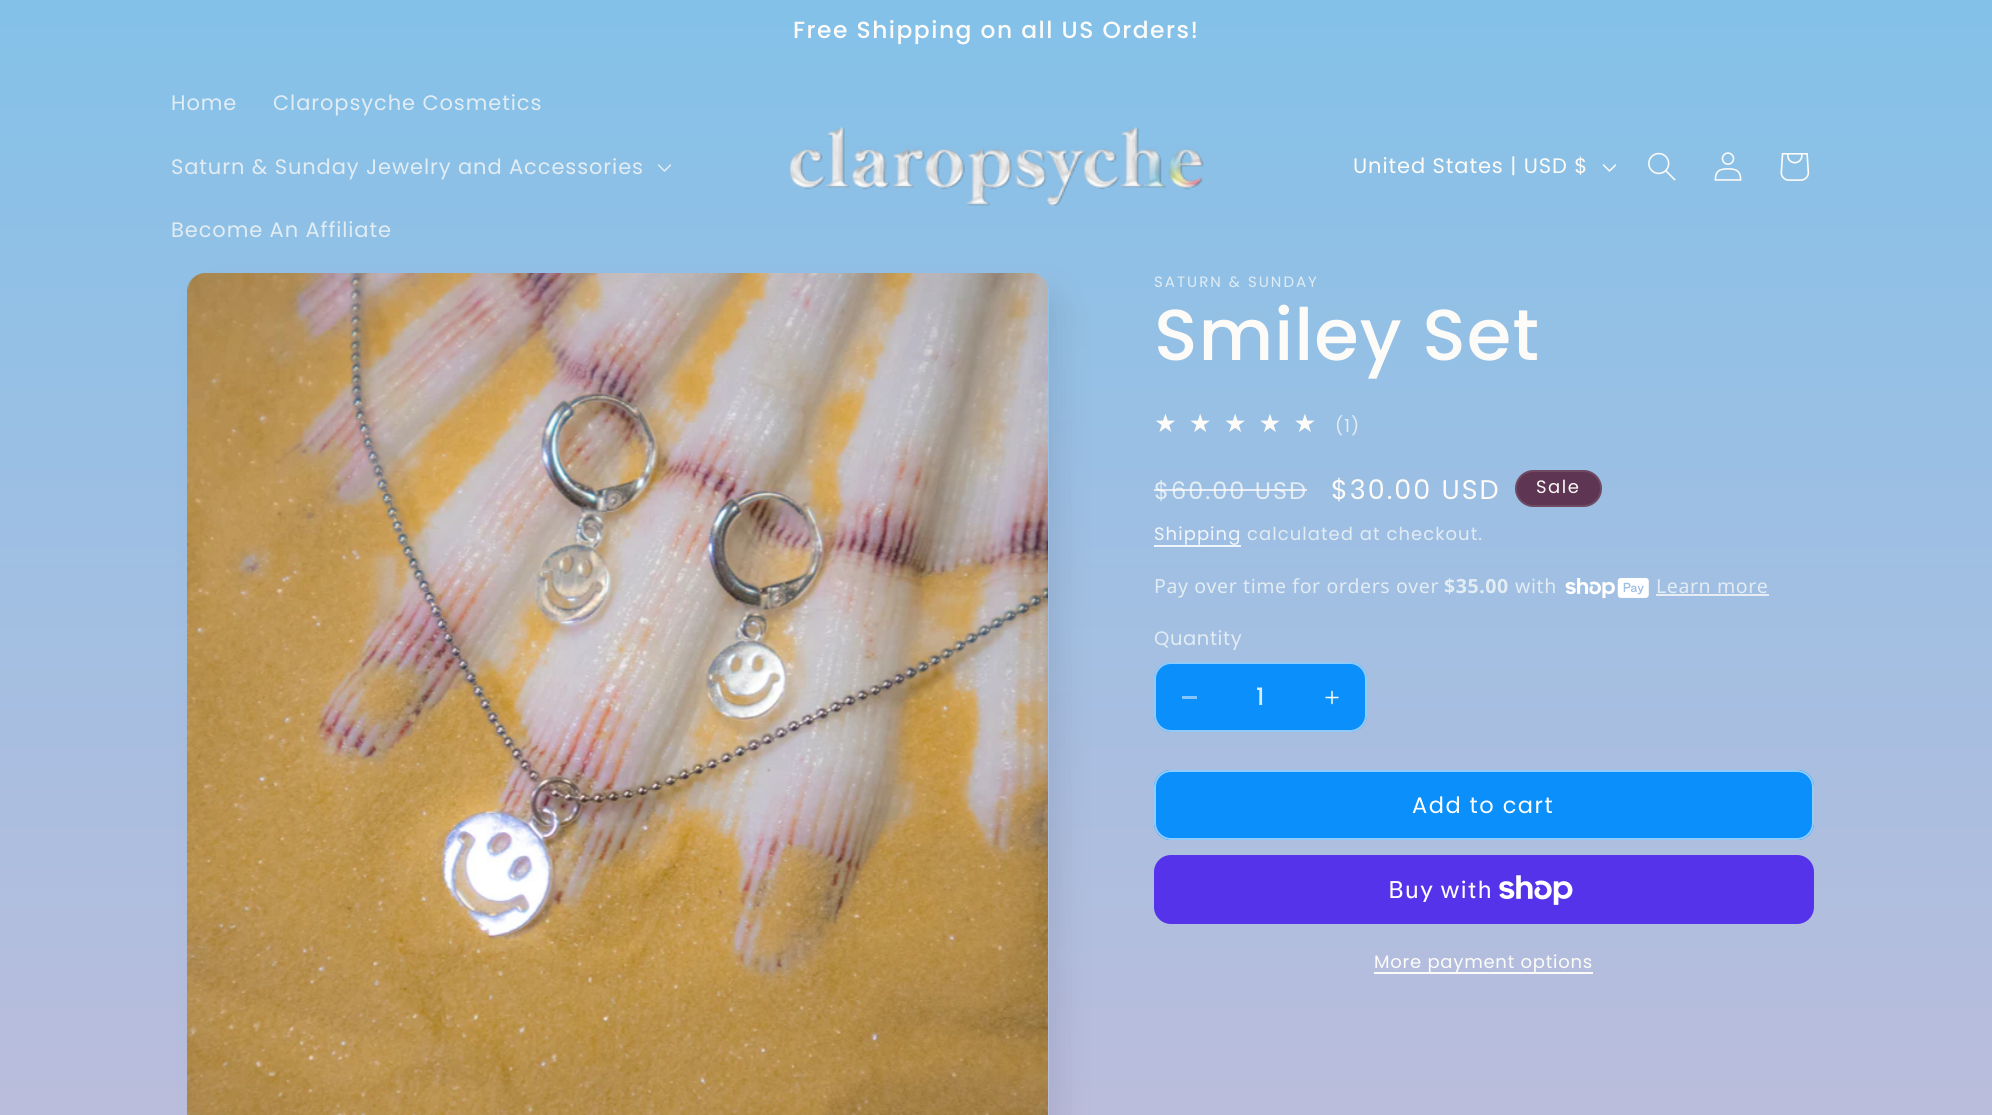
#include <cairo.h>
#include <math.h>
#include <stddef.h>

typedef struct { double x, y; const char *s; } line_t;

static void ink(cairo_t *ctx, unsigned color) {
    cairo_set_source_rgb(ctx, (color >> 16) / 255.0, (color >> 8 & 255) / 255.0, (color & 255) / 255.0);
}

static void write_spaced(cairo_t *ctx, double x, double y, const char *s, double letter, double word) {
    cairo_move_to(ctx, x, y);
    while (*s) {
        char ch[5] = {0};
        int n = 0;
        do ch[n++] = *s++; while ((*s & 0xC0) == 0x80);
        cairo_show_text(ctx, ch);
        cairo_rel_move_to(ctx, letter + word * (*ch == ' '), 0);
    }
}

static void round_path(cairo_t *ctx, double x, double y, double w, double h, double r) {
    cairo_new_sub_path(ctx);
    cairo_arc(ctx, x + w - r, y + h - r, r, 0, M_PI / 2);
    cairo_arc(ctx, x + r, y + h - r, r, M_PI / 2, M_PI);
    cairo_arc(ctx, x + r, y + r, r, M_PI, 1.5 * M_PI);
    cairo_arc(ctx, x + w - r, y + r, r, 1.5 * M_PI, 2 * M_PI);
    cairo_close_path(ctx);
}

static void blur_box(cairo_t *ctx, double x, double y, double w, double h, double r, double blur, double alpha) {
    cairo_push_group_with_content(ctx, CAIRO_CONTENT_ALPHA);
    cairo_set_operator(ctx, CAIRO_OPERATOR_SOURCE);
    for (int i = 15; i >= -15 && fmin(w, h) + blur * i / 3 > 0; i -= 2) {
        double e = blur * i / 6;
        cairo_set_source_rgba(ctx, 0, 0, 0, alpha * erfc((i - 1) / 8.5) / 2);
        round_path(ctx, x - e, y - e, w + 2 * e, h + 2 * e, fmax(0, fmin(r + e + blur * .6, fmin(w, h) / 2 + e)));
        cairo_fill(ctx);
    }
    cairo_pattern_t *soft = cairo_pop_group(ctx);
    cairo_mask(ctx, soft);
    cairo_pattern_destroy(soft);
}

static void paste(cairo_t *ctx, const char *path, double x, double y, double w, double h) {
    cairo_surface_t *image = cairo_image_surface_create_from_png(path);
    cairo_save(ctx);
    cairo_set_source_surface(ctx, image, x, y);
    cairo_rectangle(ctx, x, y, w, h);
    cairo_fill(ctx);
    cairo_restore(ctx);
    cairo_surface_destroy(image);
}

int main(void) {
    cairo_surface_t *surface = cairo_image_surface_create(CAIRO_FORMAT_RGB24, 1992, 1115);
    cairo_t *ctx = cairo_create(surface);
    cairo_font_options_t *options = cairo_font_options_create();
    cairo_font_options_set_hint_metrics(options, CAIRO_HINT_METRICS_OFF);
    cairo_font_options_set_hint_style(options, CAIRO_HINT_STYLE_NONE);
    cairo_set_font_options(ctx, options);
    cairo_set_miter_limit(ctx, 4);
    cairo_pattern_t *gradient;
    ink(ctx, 0xFFFFFF);
    cairo_paint(ctx);
    gradient = cairo_pattern_create_linear(996, 0, 996, 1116);
    cairo_pattern_add_color_stop_rgba(gradient, 0, 0.514, 0.757, 0.914, 1);
    cairo_pattern_add_color_stop_rgba(gradient, 1, 0.733, 0.741, 0.863, 1);
    cairo_set_source(ctx, gradient);
    cairo_pattern_destroy(gradient);
    cairo_rectangle(ctx, 0, 0, 1992, 1115);
    cairo_fill(ctx);
    cairo_select_font_face(ctx, "Poppins Medium", CAIRO_FONT_SLANT_NORMAL, CAIRO_FONT_WEIGHT_NORMAL);
    cairo_set_font_size(ctx, 23.4);
    ink(ctx, 0xFDFBF7);
    write_spaced(ctx, 793, 38, "Free Shipping on all US Orders!", 1.5, 0);
    cairo_select_font_face(ctx, "Poppins", CAIRO_FONT_SLANT_NORMAL, CAIRO_FONT_WEIGHT_NORMAL);
    cairo_set_font_size(ctx, 21);
    ink(ctx, 0xE2ECF3);
    {
        static const line_t items[] = {
            {171, 110, "Home"},
            {273, 110, "Claropsyche Cosmetics"},
            {171, 174, "Saturn & Sunday Jewelry and Accessories"},
        };
        for (size_t i = 0; i < sizeof items / sizeof *items; i++) {
            write_spaced(ctx, items[i].x, items[i].y, items[i].s, 0.9, 0);
        }
    }
    paste(ctx, "media/1.png", 657, 164, 15, 8);
    write_spaced(ctx, 171, 237, "Become An Affiliate", 0.9, 0);
    paste(ctx, "media/2.png", 789, 127, 415, 79);
    ink(ctx, 0xFDFBF7);
    write_spaced(ctx, 1353, 173, "United States | USD $", 0.9, 0);
    paste(ctx, "media/3.png", 1602, 164, 15, 8);
    paste(ctx, "media/4.png", 1648, 152, 28, 29);
    paste(ctx, "media/5.png", 1714, 152, 28, 29);
    paste(ctx, "media/6.png", 1780, 153, 30, 28);
    ink(ctx, 0x2E2A39);
    blur_box(ctx, 203, 291, 861, 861, 18, 15, 0.1);
    gradient = cairo_pattern_create_linear(996, 0, 996, 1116);
    cairo_pattern_add_color_stop_rgba(gradient, 0, 0.514, 0.757, 0.914, 1);
    cairo_pattern_add_color_stop_rgba(gradient, 1, 0.733, 0.741, 0.863, 1);
    cairo_set_source(ctx, gradient);
    cairo_pattern_destroy(gradient);
    cairo_new_path(ctx);
    cairo_move_to(ctx, 206, 273);
    cairo_line_to(ctx, 1031, 273);
    cairo_curve_to(ctx, 1041, 273, 1049, 281, 1049, 291);
    cairo_line_to(ctx, 1049, 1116);
    cairo_line_to(ctx, 188, 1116);
    cairo_line_to(ctx, 188, 291);
    cairo_curve_to(ctx, 188, 281, 196, 273, 206, 273);
    cairo_close_path(ctx);
    cairo_fill(ctx);
    paste(ctx, "media/7.png", 187, 273, 861, 842);
    cairo_set_font_size(ctx, 15);
    ink(ctx, 0xE2ECF3);
    write_spaced(ctx, 1154, 287, "SATURN & SUNDAY", 2, 0);
    cairo_select_font_face(ctx, "Poppins Medium", CAIRO_FONT_SLANT_NORMAL, CAIRO_FONT_WEIGHT_NORMAL);
    cairo_set_font_size(ctx, 72);
    ink(ctx, 0xFDFBF7);
    write_spaced(ctx, 1154, 360, "Smiley Set", 1, 0);
    cairo_select_font_face(ctx, "DejaVu Sans", CAIRO_FONT_SLANT_NORMAL, CAIRO_FONT_WEIGHT_NORMAL);
    cairo_set_font_size(ctx, 25.5);
    gradient = cairo_pattern_create_linear(1154, 424, 1328, 424);
    cairo_pattern_add_color_stop_rgba(gradient, 1, 0.992, 0.984, 0.969, 1);
    cairo_pattern_add_color_stop_rgba(gradient, 1, 0.655, 0.784, 0.906, 1);
    cairo_set_source(ctx, gradient);
    cairo_pattern_destroy(gradient);
    write_spaced(ctx, 1154, 432, "★★★★★", 12, 0);
    cairo_select_font_face(ctx, "Poppins", CAIRO_FONT_SLANT_NORMAL, CAIRO_FONT_WEIGHT_NORMAL);
    cairo_set_font_size(ctx, 18);
    ink(ctx, 0xE2ECF3);
    write_spaced(ctx, 1335, 432, "(1)", 1.05, 0);
    cairo_set_font_size(ctx, 24);
    write_spaced(ctx, 1154, 499, "$60.00 USD", 2, 0);
    cairo_set_source_rgba(ctx, 0.992, 0.984, 0.969, 0.75);
    cairo_rectangle(ctx, 1154, 489, 153, 2);
    cairo_fill(ctx);
    cairo_set_font_size(ctx, 27);
    ink(ctx, 0xFDFBF7);
    write_spaced(ctx, 1331, 499, "$30.00 USD", 2, 0);
    ink(ctx, 0x5E3653);
    round_path(ctx, 1515, 470, 87, 37, 18.5);
    cairo_fill(ctx);
    round_path(ctx, 1516, 471, 85, 35, 17.5);
    cairo_set_source_rgba(ctx, 0.992, 0.984, 0.969, 0.1);
    cairo_stroke(ctx);
    cairo_set_font_size(ctx, 18);
    ink(ctx, 0xFDFBF7);
    write_spaced(ctx, 1536, 493, "Sale", 1.5, 0);
    ink(ctx, 0xF0F5FB);
    write_spaced(ctx, 1154, 540, "Shipping", 1.05, 0);
    cairo_rectangle(ctx, 1154, 545, 87, 2);
    cairo_fill(ctx);
    ink(ctx, 0xE2ECF3);
    write_spaced(ctx, 1247, 540, "calculated at checkout.", 1.05, 0);
    cairo_select_font_face(ctx, "Noto Sans", CAIRO_FONT_SLANT_NORMAL, CAIRO_FONT_WEIGHT_NORMAL);
    cairo_set_font_size(ctx, 19.5);
    write_spaced(ctx, 1154, 593, "Pay over time for orders over", 0.6, 0);
    cairo_select_font_face(ctx, "Noto Sans", CAIRO_FONT_SLANT_NORMAL, CAIRO_FONT_WEIGHT_BOLD);
    write_spaced(ctx, 1444, 593, "$35.00", 0.6, 0);
    cairo_select_font_face(ctx, "Noto Sans", CAIRO_FONT_SLANT_NORMAL, CAIRO_FONT_WEIGHT_NORMAL);
    write_spaced(ctx, 1515, 593, "with", 0.6, 0);
    paste(ctx, "media/8.png", 1565, 578, 84, 21);
    write_spaced(ctx, 1656, 593, "Learn more", 0.6, 0);
    ink(ctx, 0xE6ECF2);
    cairo_rectangle(ctx, 1656, 594, 113, 2);
    cairo_fill(ctx);
    cairo_select_font_face(ctx, "Poppins", CAIRO_FONT_SLANT_NORMAL, CAIRO_FONT_WEIGHT_NORMAL);
    ink(ctx, 0xE2ECF3);
    write_spaced(ctx, 1154, 645, "Quantity", 0.6, 0);
    ink(ctx, 0x0B8FFA);
    round_path(ctx, 1154, 662, 213, 70, 17);
    cairo_fill(ctx);
    ink(ctx, 0x84C5F9);
    cairo_rectangle(ctx, 1182, 696, 15, 3);
    cairo_fill(ctx);
    paste(ctx, "media/9.png", 1325, 690, 14, 15);
    round_path(ctx, 1155, 663, 211, 68, 16);
    cairo_set_source_rgba(ctx, 0.992, 0.984, 0.969, 0.55);
    cairo_stroke(ctx);
    cairo_select_font_face(ctx, "Poppins Medium", CAIRO_FONT_SLANT_NORMAL, CAIRO_FONT_WEIGHT_NORMAL);
    cairo_set_font_size(ctx, 24);
    ink(ctx, 0xD9EBF7);
    cairo_move_to(ctx, 1256, 705);
    cairo_show_text(ctx, "1");
    ink(ctx, 0x0B8FFA);
    round_path(ctx, 1154, 770, 660, 70, 17);
    cairo_fill(ctx);
    round_path(ctx, 1155, 771, 658, 68, 16);
    cairo_stroke(ctx);
    round_path(ctx, 1155, 771, 658, 68, 16);
    cairo_set_source_rgba(ctx, 1, 1, 1, 0.55);
    cairo_stroke(ctx);
    cairo_select_font_face(ctx, "Poppins", CAIRO_FONT_SLANT_NORMAL, CAIRO_FONT_WEIGHT_NORMAL);
    cairo_set_font_size(ctx, 22.5);
    ink(ctx, 0xFFFFFF);
    write_spaced(ctx, 1412, 813, "Add to cart", 1.5, 0);
    ink(ctx, 0x5433EB);
    round_path(ctx, 1154, 855, 660, 69, 17);
    cairo_fill(ctx);
    cairo_select_font_face(ctx, "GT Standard", CAIRO_FONT_SLANT_NORMAL, CAIRO_FONT_WEIGHT_NORMAL);
    cairo_set_font_size(ctx, 24);
    ink(ctx, 0xFFFFFF);
    write_spaced(ctx, 1388, 898, "Buy with", 0.9, 0);
    paste(ctx, "media/10.png", 1499, 875, 74, 30);
    ink(ctx, 0xFDFBF7);
    cairo_rectangle(ctx, 1374, 972, 219, 2);
    cairo_fill(ctx);
    cairo_select_font_face(ctx, "Poppins", CAIRO_FONT_SLANT_NORMAL, CAIRO_FONT_WEIGHT_NORMAL);
    cairo_set_font_size(ctx, 18);
    write_spaced(ctx, 1374, 968, "More payment options", 0.75, 0);
    cairo_surface_write_to_png(surface, "image.png");
    cairo_font_options_destroy(options);
    cairo_destroy(ctx);
    cairo_surface_destroy(surface);
    return 0;
}
